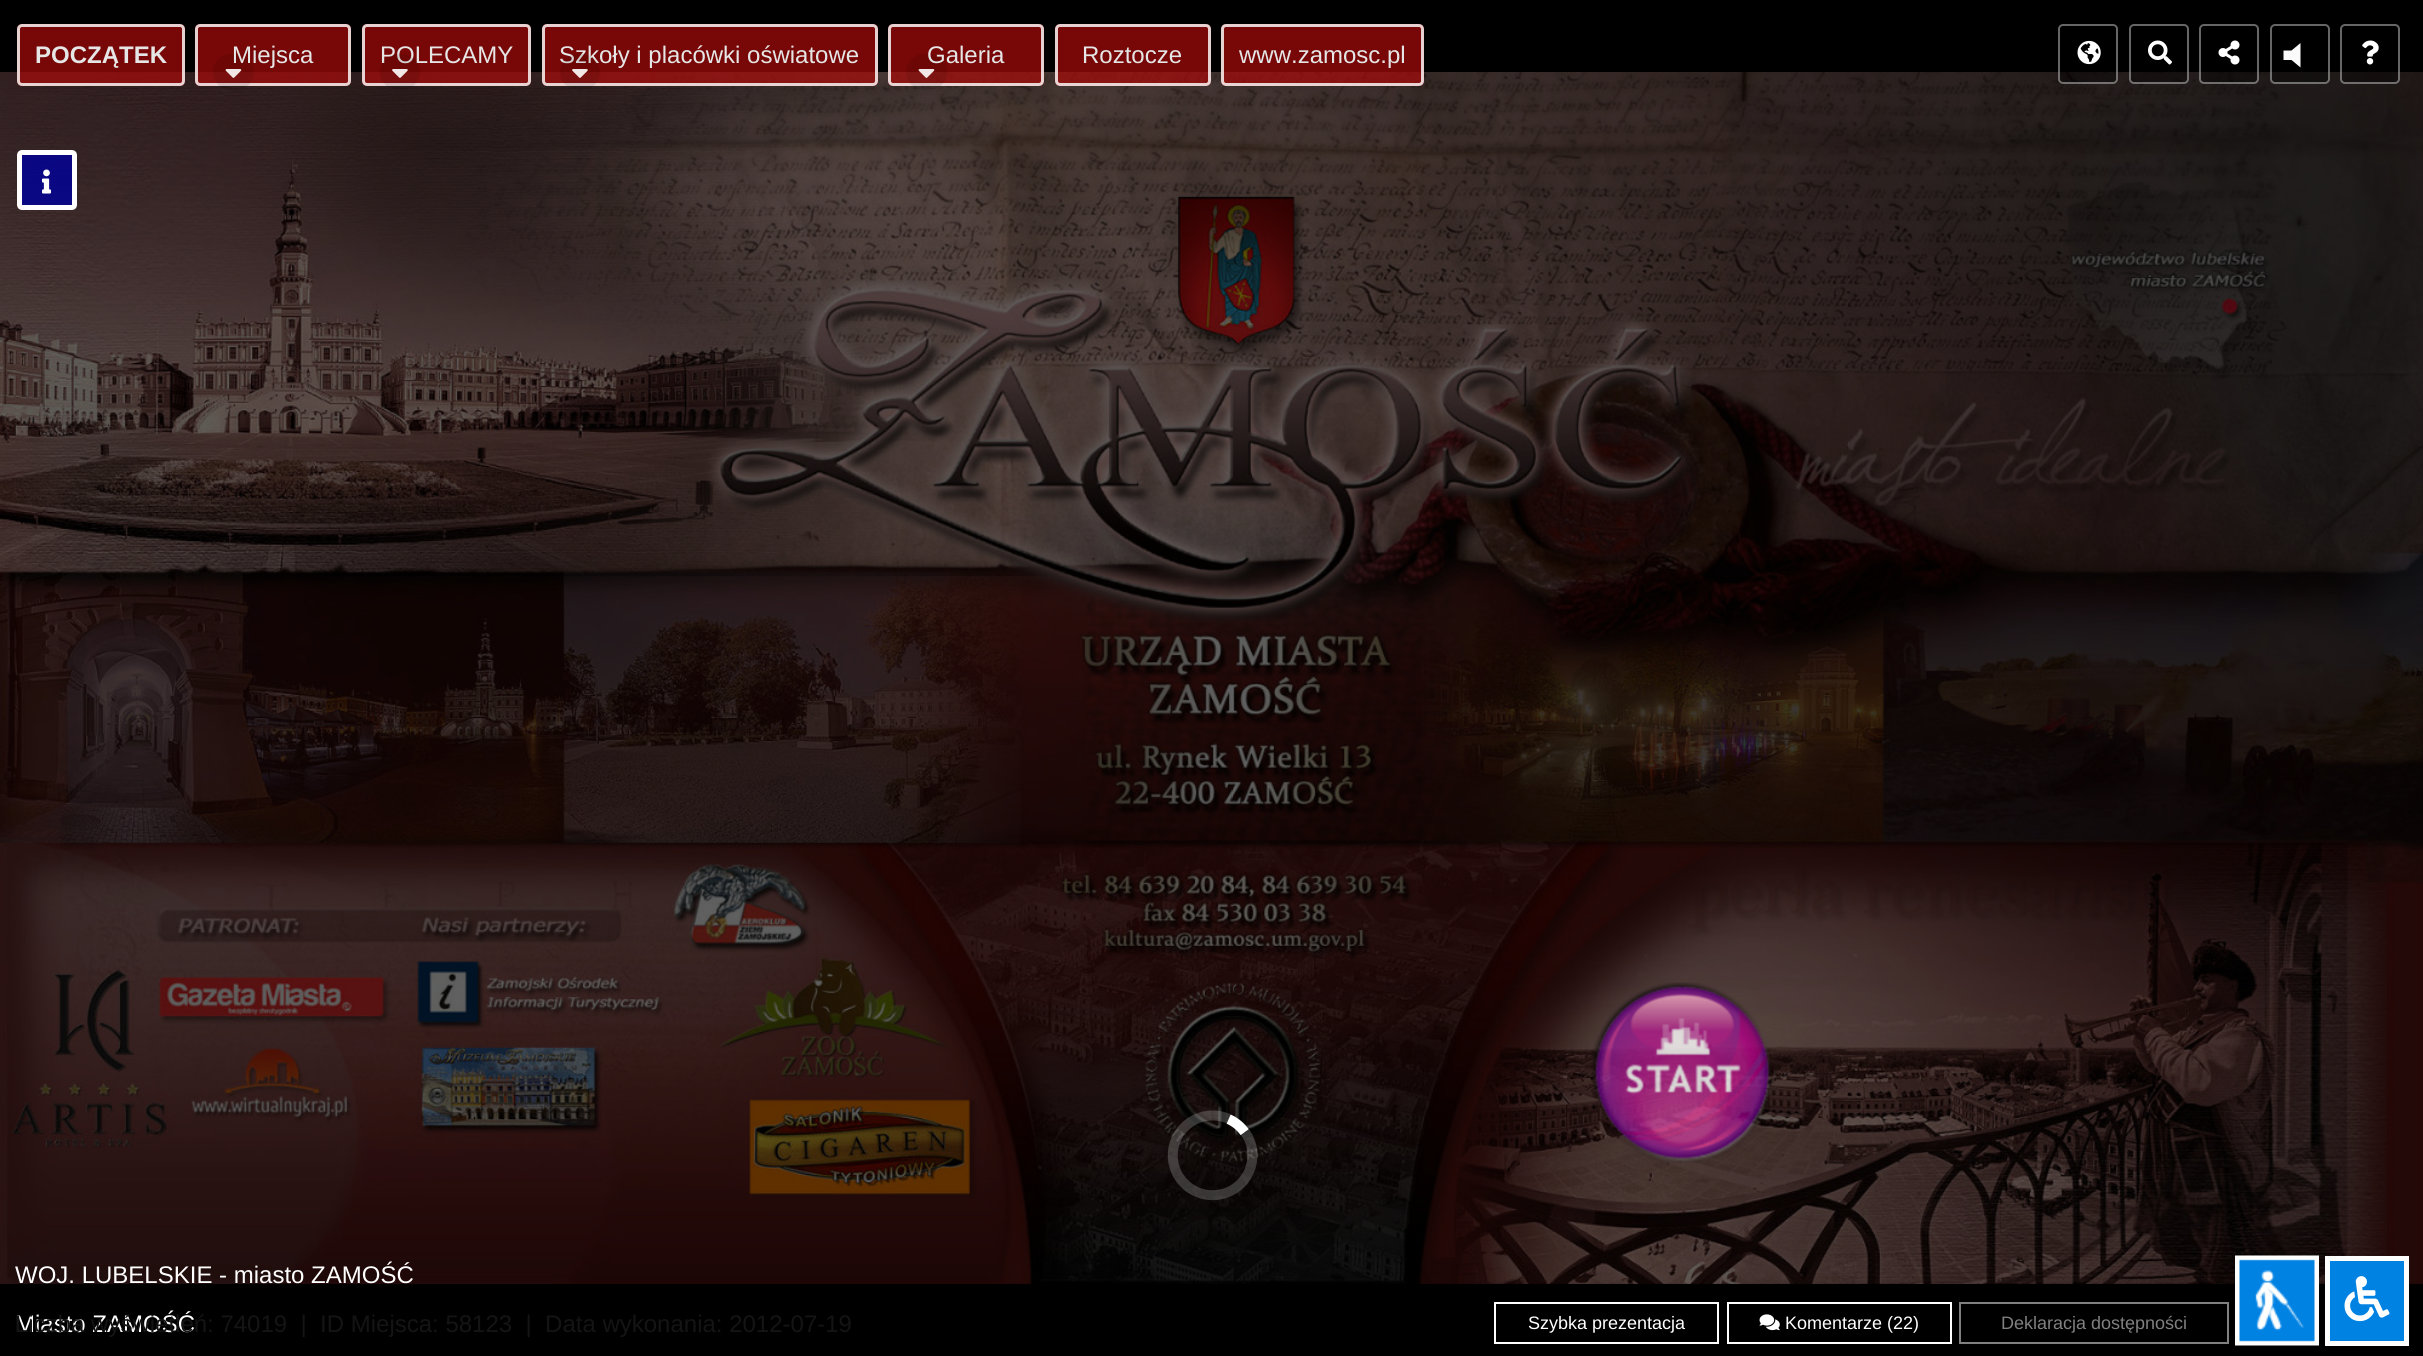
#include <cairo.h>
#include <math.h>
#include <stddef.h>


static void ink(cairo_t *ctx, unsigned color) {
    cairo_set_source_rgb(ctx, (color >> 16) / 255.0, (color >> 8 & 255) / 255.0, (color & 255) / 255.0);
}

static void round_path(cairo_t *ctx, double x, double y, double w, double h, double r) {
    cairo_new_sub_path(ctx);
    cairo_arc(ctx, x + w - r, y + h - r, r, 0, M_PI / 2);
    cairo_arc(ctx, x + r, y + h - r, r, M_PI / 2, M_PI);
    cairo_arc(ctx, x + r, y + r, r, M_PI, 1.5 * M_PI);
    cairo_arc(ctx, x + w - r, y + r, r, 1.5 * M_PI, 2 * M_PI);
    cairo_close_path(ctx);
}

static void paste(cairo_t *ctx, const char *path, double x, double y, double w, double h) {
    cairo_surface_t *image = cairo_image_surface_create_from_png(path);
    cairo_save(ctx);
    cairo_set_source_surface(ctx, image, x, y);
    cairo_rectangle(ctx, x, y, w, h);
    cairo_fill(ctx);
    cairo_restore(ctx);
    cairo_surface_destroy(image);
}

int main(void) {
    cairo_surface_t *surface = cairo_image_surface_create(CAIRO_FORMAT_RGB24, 2423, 1356);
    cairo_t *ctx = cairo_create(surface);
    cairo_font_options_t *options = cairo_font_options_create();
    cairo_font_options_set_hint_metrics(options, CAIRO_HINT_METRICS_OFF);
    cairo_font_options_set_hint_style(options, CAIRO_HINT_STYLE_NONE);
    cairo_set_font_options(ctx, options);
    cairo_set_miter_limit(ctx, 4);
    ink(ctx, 0x000000);
    cairo_paint(ctx);
    paste(ctx, "media/12.png", 0, 72, 2423, 1212);
    cairo_set_source_rgba(ctx, 0.655, 0.047, 0.043, 0.72);
    round_path(ctx, 17, 24, 168, 62, 5);
    cairo_fill(ctx);
    round_path(ctx, 18.5, 25.5, 165, 59, 3.5);
    cairo_set_source_rgba(ctx, 1, 1, 1, 0.81);
    cairo_set_line_width(ctx, 3);
    cairo_stroke(ctx);
    cairo_select_font_face(ctx, "Liberation Sans", CAIRO_FONT_SLANT_NORMAL, CAIRO_FONT_WEIGHT_BOLD);
    cairo_set_font_size(ctx, 24);
    ink(ctx, 0xE6E6E6);
    cairo_move_to(ctx, 35, 63);
    cairo_show_text(ctx, "POCZĄTEK");
    cairo_set_source_rgba(ctx, 0.655, 0.047, 0.043, 0.72);
    round_path(ctx, 195, 24, 156, 62, 5);
    cairo_fill(ctx);
    round_path(ctx, 196.5, 25.5, 153, 59, 3.5);
    cairo_set_source_rgba(ctx, 1, 1, 1, 0.81);
    cairo_stroke(ctx);
    cairo_set_source_rgba(ctx, 0, 0, 0, 0.09);
    round_path(ctx, 213, 54, 41, 36, 18);
    cairo_fill(ctx);
    paste(ctx, "media/1.png", 225, 69, 17, 9);
    cairo_select_font_face(ctx, "Liberation Sans", CAIRO_FONT_SLANT_NORMAL, CAIRO_FONT_WEIGHT_NORMAL);
    ink(ctx, 0xE6E6E6);
    cairo_move_to(ctx, 232, 63);
    cairo_show_text(ctx, "Miejsca");
    cairo_set_source_rgba(ctx, 0.655, 0.047, 0.043, 0.72);
    round_path(ctx, 362, 24, 169, 62, 5);
    cairo_fill(ctx);
    round_path(ctx, 363.5, 25.5, 166, 59, 3.5);
    cairo_set_source_rgba(ctx, 1, 1, 1, 0.81);
    cairo_stroke(ctx);
    ink(ctx, 0xE6E6E6);
    cairo_move_to(ctx, 380, 63);
    cairo_show_text(ctx, "POLECAMY");
    cairo_set_source_rgba(ctx, 0, 0, 0, 0.09);
    round_path(ctx, 380, 54, 40, 36, 18);
    cairo_fill(ctx);
    paste(ctx, "media/2.png", 392, 69, 16, 9);
    cairo_set_source_rgba(ctx, 0.655, 0.047, 0.043, 0.72);
    round_path(ctx, 542, 24, 336, 62, 5);
    cairo_fill(ctx);
    round_path(ctx, 543.5, 25.5, 333, 59, 3.5);
    cairo_set_source_rgba(ctx, 1, 1, 1, 0.81);
    cairo_stroke(ctx);
    ink(ctx, 0xE6E6E6);
    cairo_move_to(ctx, 559, 63);
    cairo_show_text(ctx, "Szkoły i placówki oświatowe");
    cairo_set_source_rgba(ctx, 0, 0, 0, 0.09);
    round_path(ctx, 560, 54, 40, 36, 18);
    cairo_fill(ctx);
    paste(ctx, "media/3.png", 572, 69, 16, 9);
    cairo_set_source_rgba(ctx, 0.655, 0.047, 0.043, 0.72);
    round_path(ctx, 888, 24, 156, 62, 5);
    cairo_fill(ctx);
    round_path(ctx, 889.5, 25.5, 153, 59, 3.5);
    cairo_set_source_rgba(ctx, 1, 1, 1, 0.81);
    cairo_stroke(ctx);
    cairo_set_source_rgba(ctx, 0, 0, 0, 0.09);
    round_path(ctx, 906, 54, 41, 36, 18);
    cairo_fill(ctx);
    paste(ctx, "media/4.png", 918, 69, 17, 9);
    ink(ctx, 0xE6E6E6);
    cairo_move_to(ctx, 927, 63);
    cairo_show_text(ctx, "Galeria");
    cairo_set_source_rgba(ctx, 0.655, 0.047, 0.043, 0.72);
    round_path(ctx, 1055, 24, 156, 62, 5);
    cairo_fill(ctx);
    round_path(ctx, 1056.5, 25.5, 153, 59, 3.5);
    cairo_set_source_rgba(ctx, 1, 1, 1, 0.81);
    cairo_stroke(ctx);
    ink(ctx, 0xE6E6E6);
    cairo_move_to(ctx, 1082, 63);
    cairo_show_text(ctx, "Roztocze");
    cairo_set_source_rgba(ctx, 0.655, 0.047, 0.043, 0.72);
    round_path(ctx, 1221, 24, 203, 62, 5);
    cairo_fill(ctx);
    round_path(ctx, 1222.5, 25.5, 200, 59, 3.5);
    cairo_set_source_rgba(ctx, 1, 1, 1, 0.81);
    cairo_stroke(ctx);
    ink(ctx, 0xE6E6E6);
    cairo_move_to(ctx, 1239, 63);
    cairo_show_text(ctx, "www.zamosc.pl");
    cairo_set_source_rgba(ctx, 0, 0, 0, 0.4);
    round_path(ctx, 2058, 24, 60, 60, 5);
    cairo_fill(ctx);
    round_path(ctx, 2059, 25, 58, 58, 4);
    cairo_set_source_rgba(ctx, 1, 1, 1, 0.4);
    cairo_set_line_width(ctx, 2);
    cairo_stroke(ctx);
    paste(ctx, "media/5.png", 2077, 40, 24, 25);
    cairo_set_source_rgba(ctx, 0, 0, 0, 0.4);
    round_path(ctx, 2129, 24, 60, 60, 5);
    cairo_fill(ctx);
    round_path(ctx, 2130, 25, 58, 58, 4);
    cairo_set_source_rgba(ctx, 1, 1, 1, 0.4);
    cairo_stroke(ctx);
    paste(ctx, "media/6.png", 2148, 40, 24, 25);
    cairo_set_source_rgba(ctx, 0, 0, 0, 0.4);
    round_path(ctx, 2199, 24, 60, 60, 5);
    cairo_fill(ctx);
    round_path(ctx, 2200, 25, 58, 58, 4);
    cairo_set_source_rgba(ctx, 1, 1, 1, 0.4);
    cairo_stroke(ctx);
    paste(ctx, "media/7.png", 2218, 40, 22, 25);
    cairo_set_source_rgba(ctx, 0, 0, 0, 0.4);
    round_path(ctx, 2270, 24, 60, 60, 5);
    cairo_fill(ctx);
    round_path(ctx, 2271, 25, 58, 58, 4);
    cairo_set_source_rgba(ctx, 1, 1, 1, 0.4);
    cairo_stroke(ctx);
    ink(ctx, 0xFBFBFB);
    cairo_new_path(ctx);
    cairo_move_to(ctx, 2300.5, 43);
    cairo_line_to(ctx, 2291.5, 50.5);
    cairo_line_to(ctx, 2283.5, 50.5);
    cairo_line_to(ctx, 2283.5, 60);
    cairo_line_to(ctx, 2291.5, 60);
    cairo_line_to(ctx, 2300.5, 67.5);
    cairo_close_path(ctx);
    cairo_fill(ctx);
    cairo_set_source_rgba(ctx, 0, 0, 0, 0.4);
    round_path(ctx, 2340, 24, 60, 60, 5);
    cairo_fill(ctx);
    round_path(ctx, 2341, 25, 58, 58, 4);
    cairo_set_source_rgba(ctx, 1, 1, 1, 0.4);
    cairo_stroke(ctx);
    paste(ctx, "media/8.png", 2362, 40, 17, 25);
    cairo_set_source_rgba(ctx, 0, 0, 0.608, 0.8);
    round_path(ctx, 19.5, 152.5, 55, 55, 2.5);
    cairo_fill_preserve(ctx);
    ink(ctx, 0xFFFFFF);
    cairo_set_line_width(ctx, 5);
    cairo_stroke(ctx);
    paste(ctx, "media/9.png", 42, 169, 9, 25);
    paste(ctx, "media/10.png", 2235, 1255, 84, 91);
    ink(ctx, 0x0082E3);
    cairo_rectangle(ctx, 2327.5, 1258.5, 79, 85);
    cairo_fill_preserve(ctx);
    ink(ctx, 0xFFFFFF);
    cairo_stroke(ctx);
    paste(ctx, "media/11.png", 2344, 1276, 46, 46);
    paste(ctx, "media/13.png", 1167, 1110, 91, 91);
    paste(ctx, "media/14.png", 1591, 982, 181, 181);
    cairo_move_to(ctx, 15, 1283);
    cairo_show_text(ctx, "WOJ. LUBELSKIE - miasto ZAMOŚĆ");
    cairo_move_to(ctx, 15, 1332);
    cairo_show_text(ctx, "Miasto ZAMOŚĆ");
    ink(ctx, 0x141414);
    cairo_move_to(ctx, 15, 1332);
    cairo_show_text(ctx, "Liczba wyświetleń: 74019  |  ID Miejsca: 58123  |  Data wykonania: 2012-07-19");
    cairo_rectangle(ctx, 1495, 1303, 223, 40);
    ink(ctx, 0xFFFFFF);
    cairo_set_line_width(ctx, 2);
    cairo_stroke(ctx);
    cairo_set_font_size(ctx, 18);
    cairo_move_to(ctx, 1528, 1329);
    cairo_show_text(ctx, "Szybka prezentacja");
    cairo_rectangle(ctx, 1728, 1303, 223, 40);
    cairo_stroke(ctx);
    paste(ctx, "media/15.png", 1759, 1314, 21, 17);
    cairo_move_to(ctx, 1785, 1329);
    cairo_show_text(ctx, "Komentarze (22)");
    cairo_rectangle(ctx, 1960, 1303, 268, 40);
    ink(ctx, 0x808080);
    cairo_stroke(ctx);
    cairo_move_to(ctx, 2001, 1329);
    cairo_show_text(ctx, "Deklaracja dostępności");
    cairo_surface_write_to_png(surface, "image.png");
    cairo_font_options_destroy(options);
    cairo_destroy(ctx);
    cairo_surface_destroy(surface);
    return 0;
}
